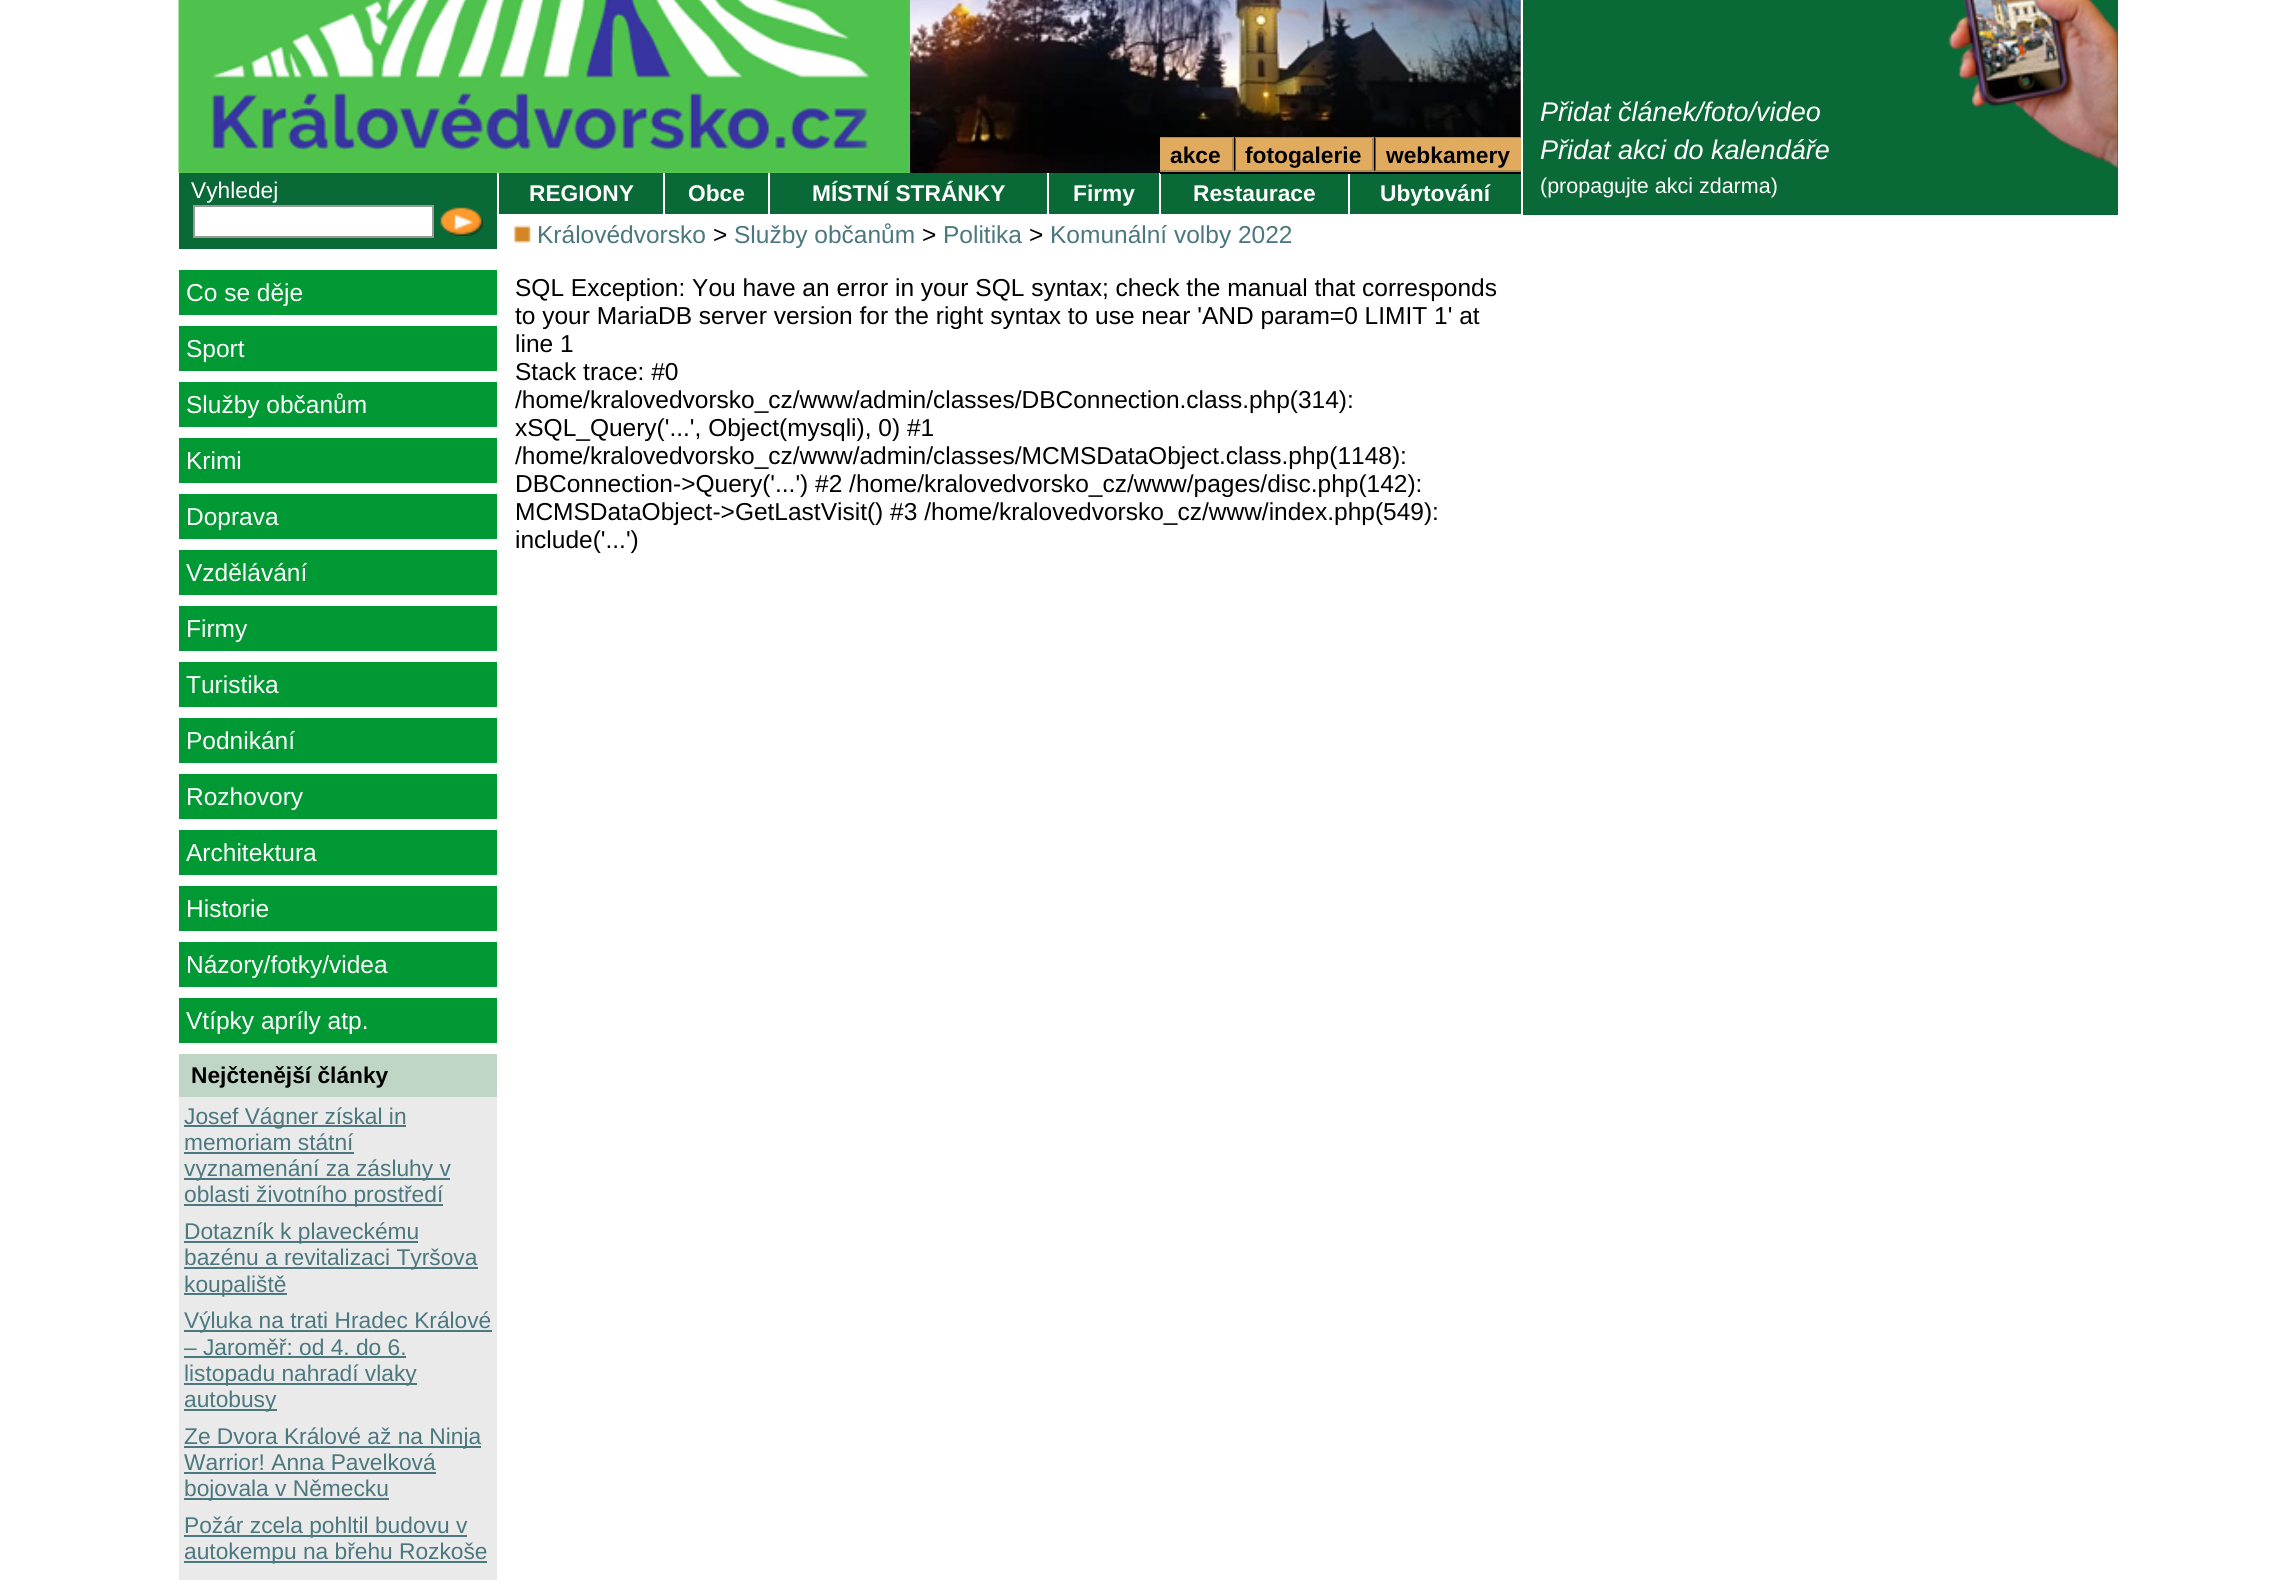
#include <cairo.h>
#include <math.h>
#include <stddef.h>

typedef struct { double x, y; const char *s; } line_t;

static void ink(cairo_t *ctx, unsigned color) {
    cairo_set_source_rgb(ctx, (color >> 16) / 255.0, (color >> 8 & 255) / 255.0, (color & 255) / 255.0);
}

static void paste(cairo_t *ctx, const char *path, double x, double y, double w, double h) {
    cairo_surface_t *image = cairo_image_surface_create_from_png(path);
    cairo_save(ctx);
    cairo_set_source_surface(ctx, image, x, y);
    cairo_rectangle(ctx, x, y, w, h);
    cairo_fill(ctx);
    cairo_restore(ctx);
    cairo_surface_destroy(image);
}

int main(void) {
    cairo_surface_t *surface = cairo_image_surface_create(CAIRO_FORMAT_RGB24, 2296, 1588);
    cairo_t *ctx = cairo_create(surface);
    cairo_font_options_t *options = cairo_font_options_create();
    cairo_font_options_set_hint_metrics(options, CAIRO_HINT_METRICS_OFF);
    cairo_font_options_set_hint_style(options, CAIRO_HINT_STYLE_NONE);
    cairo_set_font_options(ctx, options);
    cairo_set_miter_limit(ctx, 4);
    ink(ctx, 0xFFFFFF);
    cairo_paint(ctx);
    paste(ctx, "media/1.png", 178, 0, 732, 173);
    ink(ctx, 0x096A37);
    cairo_rectangle(ctx, 179, 173, 318, 76);
    cairo_fill(ctx);
    cairo_select_font_face(ctx, "Liberation Sans", CAIRO_FONT_SLANT_NORMAL, CAIRO_FONT_WEIGHT_NORMAL);
    cairo_set_font_size(ctx, 22.75);
    ink(ctx, 0xFFFFFF);
    cairo_move_to(ctx, 191, 198);
    cairo_show_text(ctx, "Vyhledej");
    cairo_rectangle(ctx, 194, 206, 239, 31);
    cairo_fill_preserve(ctx);
    ink(ctx, 0x999999);
    cairo_stroke(ctx);
    paste(ctx, "media/2.png", 440, 207, 43, 29);
    ink(ctx, 0x019934);
    cairo_rectangle(ctx, 179, 270, 318, 45);
    cairo_fill(ctx);
    cairo_set_font_size(ctx, 24.5);
    ink(ctx, 0xFFFFFF);
    cairo_move_to(ctx, 186, 301);
    cairo_show_text(ctx, "Co se děje");
    ink(ctx, 0x019934);
    cairo_rectangle(ctx, 179, 326, 318, 45);
    cairo_fill(ctx);
    ink(ctx, 0xFFFFFF);
    cairo_move_to(ctx, 186, 357);
    cairo_show_text(ctx, "Sport");
    ink(ctx, 0x019934);
    cairo_rectangle(ctx, 179, 382, 318, 45);
    cairo_fill(ctx);
    ink(ctx, 0xFFFFFF);
    cairo_move_to(ctx, 186, 413);
    cairo_show_text(ctx, "Služby občanům");
    ink(ctx, 0x019934);
    cairo_rectangle(ctx, 179, 438, 318, 45);
    cairo_fill(ctx);
    ink(ctx, 0xFFFFFF);
    cairo_move_to(ctx, 186, 469);
    cairo_show_text(ctx, "Krimi");
    ink(ctx, 0x019934);
    cairo_rectangle(ctx, 179, 494, 318, 45);
    cairo_fill(ctx);
    ink(ctx, 0xFFFFFF);
    cairo_move_to(ctx, 186, 525);
    cairo_show_text(ctx, "Doprava");
    ink(ctx, 0x019934);
    cairo_rectangle(ctx, 179, 550, 318, 45);
    cairo_fill(ctx);
    ink(ctx, 0xFFFFFF);
    cairo_move_to(ctx, 186, 581);
    cairo_show_text(ctx, "Vzdělávání");
    ink(ctx, 0x019934);
    cairo_rectangle(ctx, 179, 606, 318, 45);
    cairo_fill(ctx);
    ink(ctx, 0xFFFFFF);
    cairo_move_to(ctx, 186, 637);
    cairo_show_text(ctx, "Firmy");
    ink(ctx, 0x019934);
    cairo_rectangle(ctx, 179, 662, 318, 45);
    cairo_fill(ctx);
    ink(ctx, 0xFFFFFF);
    cairo_move_to(ctx, 186, 693);
    cairo_show_text(ctx, "Turistika");
    ink(ctx, 0x019934);
    cairo_rectangle(ctx, 179, 718, 318, 45);
    cairo_fill(ctx);
    ink(ctx, 0xFFFFFF);
    cairo_move_to(ctx, 186, 749);
    cairo_show_text(ctx, "Podnikání");
    ink(ctx, 0x019934);
    cairo_rectangle(ctx, 179, 774, 318, 45);
    cairo_fill(ctx);
    ink(ctx, 0xFFFFFF);
    cairo_move_to(ctx, 186, 805);
    cairo_show_text(ctx, "Rozhovory");
    ink(ctx, 0x019934);
    cairo_rectangle(ctx, 179, 830, 318, 45);
    cairo_fill(ctx);
    ink(ctx, 0xFFFFFF);
    cairo_move_to(ctx, 186, 861);
    cairo_show_text(ctx, "Architektura");
    ink(ctx, 0x019934);
    cairo_rectangle(ctx, 179, 886, 318, 45);
    cairo_fill(ctx);
    ink(ctx, 0xFFFFFF);
    cairo_move_to(ctx, 186, 917);
    cairo_show_text(ctx, "Historie");
    ink(ctx, 0x019934);
    cairo_rectangle(ctx, 179, 942, 318, 45);
    cairo_fill(ctx);
    ink(ctx, 0xFFFFFF);
    cairo_move_to(ctx, 186, 973);
    cairo_show_text(ctx, "Názory/fotky/videa");
    ink(ctx, 0x019934);
    cairo_rectangle(ctx, 179, 998, 318, 45);
    cairo_fill(ctx);
    ink(ctx, 0xFFFFFF);
    cairo_move_to(ctx, 186, 1029);
    cairo_show_text(ctx, "Vtípky apríly atp.");
    ink(ctx, 0xBFD6C6);
    cairo_rectangle(ctx, 179, 1054, 318, 43);
    cairo_fill(ctx);
    cairo_select_font_face(ctx, "Liberation Sans", CAIRO_FONT_SLANT_NORMAL, CAIRO_FONT_WEIGHT_BOLD);
    cairo_set_font_size(ctx, 22.75);
    ink(ctx, 0x000000);
    cairo_move_to(ctx, 191, 1083);
    cairo_show_text(ctx, "Nejčtenější články");
    ink(ctx, 0xEAEAEA);
    cairo_rectangle(ctx, 179, 1097, 318, 483);
    cairo_fill(ctx);
    ink(ctx, 0x4B777F);
    cairo_rectangle(ctx, 184, 1125, 222, 2);
    cairo_fill(ctx);
    cairo_select_font_face(ctx, "Liberation Sans", CAIRO_FONT_SLANT_NORMAL, CAIRO_FONT_WEIGHT_NORMAL);
    cairo_move_to(ctx, 184, 1124);
    cairo_show_text(ctx, "Josef Vágner získal in");
    cairo_move_to(ctx, 184, 1150);
    cairo_show_text(ctx, "memoriam státní");
    cairo_rectangle(ctx, 184, 1152, 170, 2);
    cairo_fill(ctx);
    cairo_rectangle(ctx, 184, 1178, 266, 2);
    cairo_fill(ctx);
    cairo_move_to(ctx, 184, 1176);
    cairo_show_text(ctx, "vyznamenání za zásluhy v");
    cairo_rectangle(ctx, 184, 1204, 259, 2);
    cairo_fill(ctx);
    cairo_move_to(ctx, 184, 1202);
    cairo_show_text(ctx, "oblasti životního prostředí");
    cairo_rectangle(ctx, 184, 1241, 234, 2);
    cairo_fill(ctx);
    cairo_move_to(ctx, 184, 1239);
    cairo_show_text(ctx, "Dotazník k plaveckému");
    cairo_rectangle(ctx, 184, 1267, 294, 2);
    cairo_fill(ctx);
    cairo_move_to(ctx, 184, 1265);
    cairo_show_text(ctx, "bazénu a revitalizaci Tyršova");
    cairo_rectangle(ctx, 184, 1293, 103, 2);
    cairo_fill(ctx);
    cairo_move_to(ctx, 184, 1292);
    cairo_show_text(ctx, "koupaliště");
    cairo_rectangle(ctx, 184, 1330, 308, 2);
    cairo_fill(ctx);
    cairo_move_to(ctx, 184, 1328);
    cairo_show_text(ctx, "Výluka na trati Hradec Králové");
    cairo_move_to(ctx, 184, 1355);
    cairo_show_text(ctx, "– Jaroměř: od 4. do 6.");
    cairo_rectangle(ctx, 184, 1356, 222, 2);
    cairo_fill(ctx);
    cairo_rectangle(ctx, 184, 1383, 233, 2);
    cairo_fill(ctx);
    cairo_move_to(ctx, 184, 1381);
    cairo_show_text(ctx, "listopadu nahradí vlaky");
    cairo_rectangle(ctx, 184, 1409, 93, 2);
    cairo_fill(ctx);
    cairo_move_to(ctx, 184, 1407);
    cairo_show_text(ctx, "autobusy");
    cairo_rectangle(ctx, 184, 1446, 297, 2);
    cairo_fill(ctx);
    cairo_move_to(ctx, 184, 1444);
    cairo_show_text(ctx, "Ze Dvora Králové až na Ninja");
    cairo_move_to(ctx, 184, 1470);
    cairo_show_text(ctx, "Warrior! Anna Pavelková");
    cairo_rectangle(ctx, 184, 1472, 252, 2);
    cairo_fill(ctx);
    cairo_rectangle(ctx, 184, 1498, 205, 2);
    cairo_fill(ctx);
    cairo_move_to(ctx, 184, 1496);
    cairo_show_text(ctx, "bojovala v Německu");
    cairo_rectangle(ctx, 184, 1535, 283, 2);
    cairo_fill(ctx);
    cairo_move_to(ctx, 184, 1533);
    cairo_show_text(ctx, "Požár zcela pohltil budovu v");
    cairo_rectangle(ctx, 184, 1561, 303, 2);
    cairo_fill(ctx);
    cairo_move_to(ctx, 184, 1559);
    cairo_show_text(ctx, "autokempu na břehu Rozkoše");
    paste(ctx, "media/3.png", 910, 0, 611, 173);
    ink(ctx, 0x000000);
    cairo_rectangle(ctx, 1160, 172, 361, 2);
    cairo_fill(ctx);
    ink(ctx, 0xE1AB5F);
    cairo_rectangle(ctx, 1160, 137, 361, 35);
    cairo_fill(ctx);
    cairo_set_source_rgba(ctx, 0, 0, 0, 0.2);
    cairo_new_path(ctx);
    cairo_move_to(ctx, 1160, 136);
    cairo_line_to(ctx, 1234, 136);
    cairo_line_to(ctx, 1232, 138);
    cairo_line_to(ctx, 1160, 138);
    cairo_close_path(ctx);
    cairo_fill(ctx);
    ink(ctx, 0xB4894C);
    cairo_new_path(ctx);
    cairo_move_to(ctx, 1234, 136.5);
    cairo_line_to(ctx, 1234, 171.5);
    cairo_line_to(ctx, 1232, 170);
    cairo_line_to(ctx, 1232, 138);
    cairo_close_path(ctx);
    cairo_fill(ctx);
    cairo_set_source_rgba(ctx, 0, 0, 0, 0.2);
    cairo_new_path(ctx);
    cairo_move_to(ctx, 1234, 172);
    cairo_line_to(ctx, 1160, 172);
    cairo_line_to(ctx, 1160, 170);
    cairo_line_to(ctx, 1232, 170);
    cairo_close_path(ctx);
    cairo_fill(ctx);
    cairo_select_font_face(ctx, "Liberation Sans", CAIRO_FONT_SLANT_NORMAL, CAIRO_FONT_WEIGHT_BOLD);
    ink(ctx, 0x000000);
    cairo_move_to(ctx, 1170, 163);
    cairo_show_text(ctx, "akce");
    cairo_set_source_rgba(ctx, 0, 0, 0, 0.2);
    cairo_new_path(ctx);
    cairo_move_to(ctx, 1234, 136);
    cairo_line_to(ctx, 1374, 136);
    cairo_line_to(ctx, 1372, 138);
    cairo_line_to(ctx, 1236, 138);
    cairo_close_path(ctx);
    cairo_fill(ctx);
    ink(ctx, 0xB4894C);
    cairo_new_path(ctx);
    cairo_move_to(ctx, 1374, 136.5);
    cairo_line_to(ctx, 1374, 171.5);
    cairo_line_to(ctx, 1372, 170);
    cairo_line_to(ctx, 1372, 138);
    cairo_close_path(ctx);
    cairo_fill(ctx);
    cairo_set_source_rgba(ctx, 0, 0, 0, 0.2);
    cairo_new_path(ctx);
    cairo_move_to(ctx, 1374, 172);
    cairo_line_to(ctx, 1234, 172);
    cairo_line_to(ctx, 1236, 170);
    cairo_line_to(ctx, 1372, 170);
    cairo_close_path(ctx);
    cairo_fill(ctx);
    ink(ctx, 0x000000);
    cairo_new_path(ctx);
    cairo_move_to(ctx, 1234, 171.5);
    cairo_line_to(ctx, 1234, 136.5);
    cairo_line_to(ctx, 1235.5, 138);
    cairo_line_to(ctx, 1235.5, 170);
    cairo_close_path(ctx);
    cairo_fill(ctx);
    cairo_move_to(ctx, 1245, 163);
    cairo_show_text(ctx, "fotogalerie");
    cairo_set_source_rgba(ctx, 0, 0, 0, 0.2);
    cairo_new_path(ctx);
    cairo_move_to(ctx, 1374, 136);
    cairo_line_to(ctx, 1521, 136);
    cairo_line_to(ctx, 1521, 138);
    cairo_line_to(ctx, 1376, 138);
    cairo_close_path(ctx);
    cairo_fill(ctx);
    ink(ctx, 0xB4894C);
    cairo_new_path(ctx);
    cairo_move_to(ctx, 1521, 172);
    cairo_line_to(ctx, 1374, 172);
    cairo_line_to(ctx, 1376, 170);
    cairo_line_to(ctx, 1521, 170);
    cairo_close_path(ctx);
    cairo_fill(ctx);
    ink(ctx, 0x000000);
    cairo_new_path(ctx);
    cairo_move_to(ctx, 1374, 171.5);
    cairo_line_to(ctx, 1374, 136.5);
    cairo_line_to(ctx, 1375.5, 138);
    cairo_line_to(ctx, 1375.5, 170);
    cairo_close_path(ctx);
    cairo_fill(ctx);
    cairo_move_to(ctx, 1386, 163);
    cairo_show_text(ctx, "webkamery");
    ink(ctx, 0x096A37);
    cairo_rectangle(ctx, 499, 173, 164, 41);
    cairo_fill(ctx);
    ink(ctx, 0xFFFFFF);
    cairo_move_to(ctx, 529, 201);
    cairo_show_text(ctx, "REGIONY");
    ink(ctx, 0x096A37);
    cairo_rectangle(ctx, 665, 173, 103, 41);
    cairo_fill(ctx);
    ink(ctx, 0xFFFFFF);
    cairo_move_to(ctx, 688, 201);
    cairo_show_text(ctx, "Obce");
    ink(ctx, 0x096A37);
    cairo_rectangle(ctx, 770, 173, 277, 41);
    cairo_fill(ctx);
    ink(ctx, 0xFFFFFF);
    cairo_move_to(ctx, 812, 201);
    cairo_show_text(ctx, "MÍSTNÍ STRÁNKY");
    ink(ctx, 0x096A37);
    cairo_rectangle(ctx, 1049, 173, 110, 41);
    cairo_fill(ctx);
    ink(ctx, 0xFFFFFF);
    cairo_move_to(ctx, 1073, 201);
    cairo_show_text(ctx, "Firmy");
    ink(ctx, 0x096A37);
    cairo_rectangle(ctx, 1161, 174, 187, 40);
    cairo_fill(ctx);
    ink(ctx, 0xFFFFFF);
    cairo_move_to(ctx, 1193, 201);
    cairo_show_text(ctx, "Restaurace");
    ink(ctx, 0x096A37);
    cairo_rectangle(ctx, 1350, 174, 171, 40);
    cairo_fill(ctx);
    ink(ctx, 0xFFFFFF);
    cairo_move_to(ctx, 1380, 201);
    cairo_show_text(ctx, "Ubytování");
    ink(ctx, 0x096A37);
    cairo_rectangle(ctx, 1523, 0, 595, 215);
    cairo_fill(ctx);
    paste(ctx, "media/4.png", 1947, 0, 171, 169);
    cairo_select_font_face(ctx, "Liberation Sans", CAIRO_FONT_SLANT_ITALIC, CAIRO_FONT_WEIGHT_NORMAL);
    cairo_set_font_size(ctx, 27);
    ink(ctx, 0xFFFFFF);
    cairo_move_to(ctx, 1540, 121);
    cairo_show_text(ctx, "Přidat článek/foto/video");
    cairo_move_to(ctx, 1540, 159);
    cairo_show_text(ctx, "Přidat akci do kalendáře");
    cairo_select_font_face(ctx, "Liberation Sans", CAIRO_FONT_SLANT_NORMAL, CAIRO_FONT_WEIGHT_NORMAL);
    cairo_set_font_size(ctx, 21.5);
    cairo_move_to(ctx, 1540, 193);
    cairo_show_text(ctx, "(propagujte akci zdarma)");
    paste(ctx, "media/5.png", 514, 225, 17, 18);
    cairo_set_font_size(ctx, 24.5);
    ink(ctx, 0x4B777F);
    cairo_move_to(ctx, 537, 243);
    cairo_show_text(ctx, "Královédvorsko");
    ink(ctx, 0x000000);
    cairo_move_to(ctx, 713, 243);
    cairo_show_text(ctx, ">");
    ink(ctx, 0x4B777F);
    cairo_move_to(ctx, 734, 243);
    cairo_show_text(ctx, "Služby občanům");
    ink(ctx, 0x000000);
    cairo_move_to(ctx, 922, 243);
    cairo_show_text(ctx, ">");
    ink(ctx, 0x4B777F);
    cairo_move_to(ctx, 943, 243);
    cairo_show_text(ctx, "Politika");
    ink(ctx, 0x000000);
    cairo_move_to(ctx, 1029, 243);
    cairo_show_text(ctx, ">");
    ink(ctx, 0x4B777F);
    cairo_move_to(ctx, 1050, 243);
    cairo_show_text(ctx, "Komunální volby 2022");
    ink(ctx, 0x000000);
    {
        static const line_t items[] = {
            {515, 296, "SQL Exception: You have an error in your SQL syntax; check the manual that corresponds"},
            {515, 324, "to your MariaDB server version for the right syntax to use near 'AND param=0 LIMIT 1' at"},
            {515, 352, "line 1"},
            {515, 380, "Stack trace: #0"},
            {515, 408, "/home/kralovedvorsko_cz/www/admin/classes/DBConnection.class.php(314):"},
            {515, 436, "xSQL_Query('...', Object(mysqli), 0) #1"},
            {515, 464, "/home/kralovedvorsko_cz/www/admin/classes/MCMSDataObject.class.php(1148):"},
            {515, 492, "DBConnection->Query('...') #2 /home/kralovedvorsko_cz/www/pages/disc.php(142):"},
            {515, 520, "MCMSDataObject->GetLastVisit() #3 /home/kralovedvorsko_cz/www/index.php(549):"},
            {515, 548, "include('...')"},
        };
        for (size_t i = 0; i < sizeof items / sizeof *items; i++) {
            cairo_move_to(ctx, items[i].x, items[i].y);
            cairo_show_text(ctx, items[i].s);
        }
    }
    cairo_surface_write_to_png(surface, "image.png");
    cairo_font_options_destroy(options);
    cairo_destroy(ctx);
    cairo_surface_destroy(surface);
    return 0;
}
